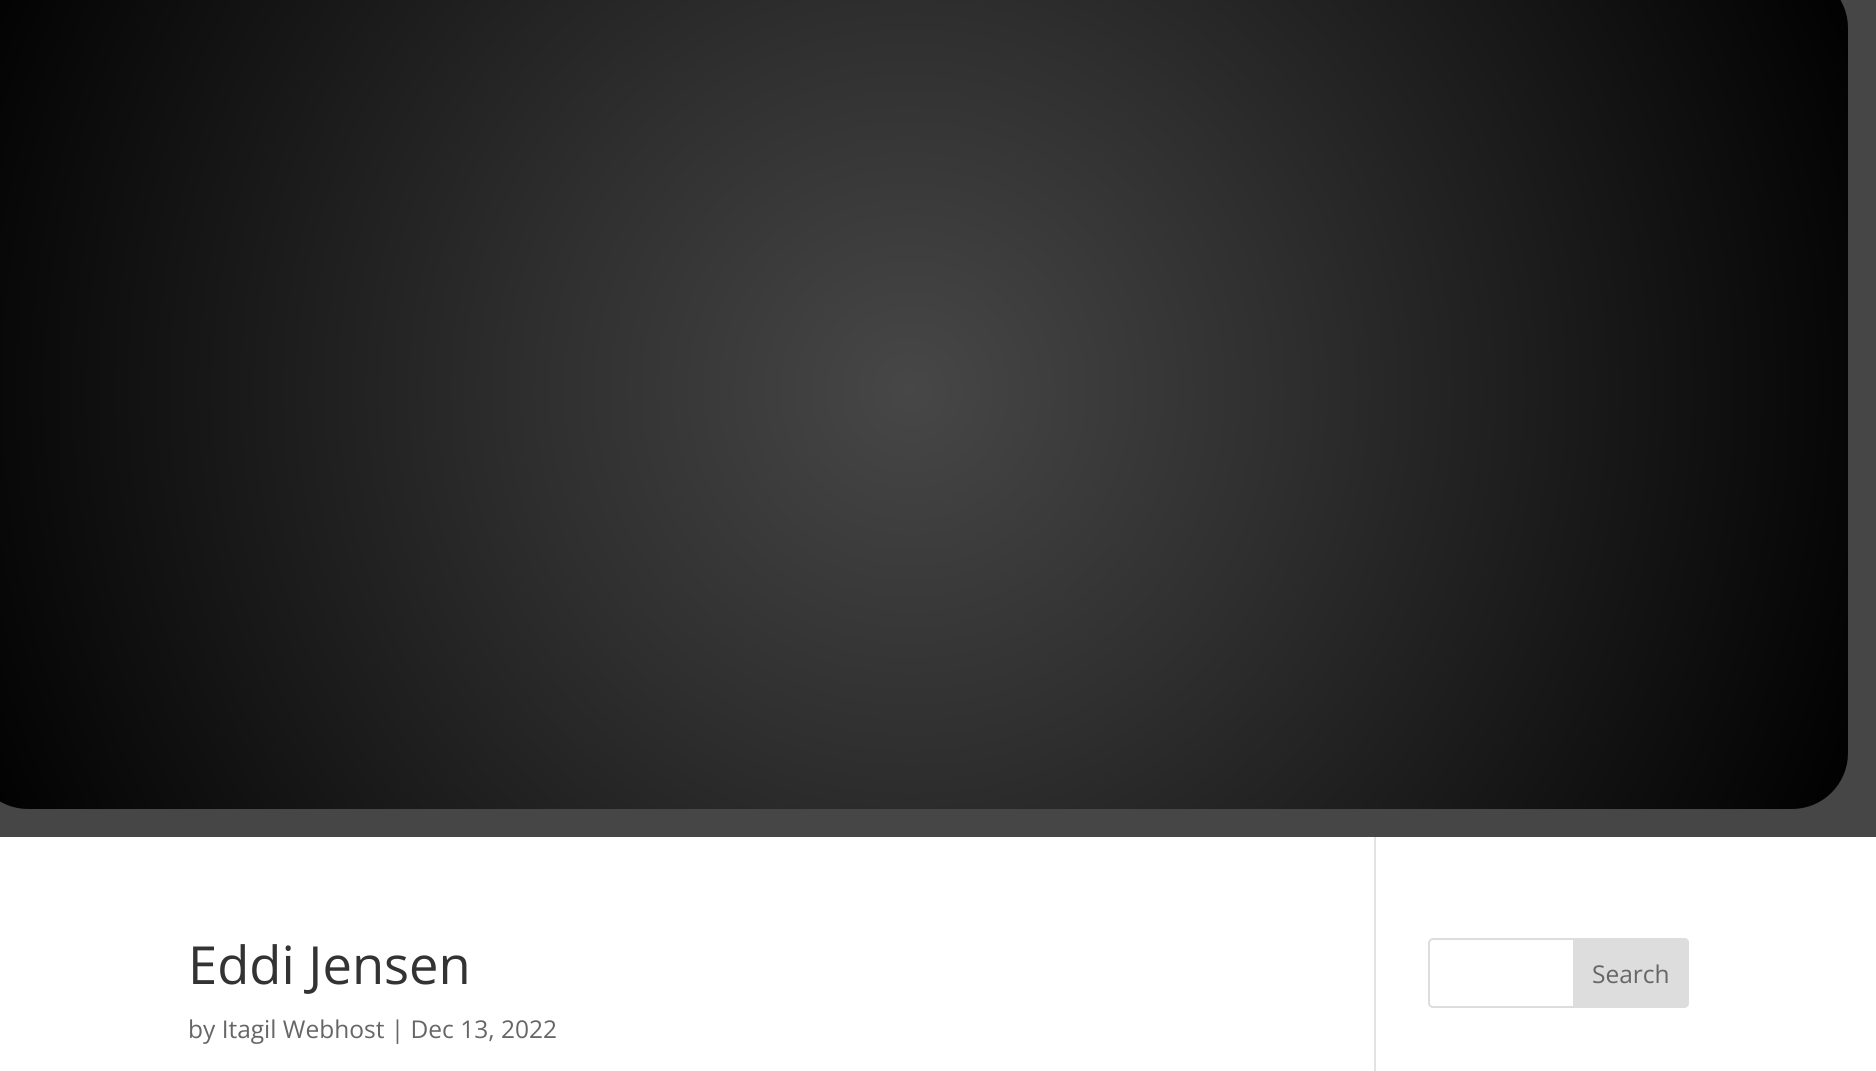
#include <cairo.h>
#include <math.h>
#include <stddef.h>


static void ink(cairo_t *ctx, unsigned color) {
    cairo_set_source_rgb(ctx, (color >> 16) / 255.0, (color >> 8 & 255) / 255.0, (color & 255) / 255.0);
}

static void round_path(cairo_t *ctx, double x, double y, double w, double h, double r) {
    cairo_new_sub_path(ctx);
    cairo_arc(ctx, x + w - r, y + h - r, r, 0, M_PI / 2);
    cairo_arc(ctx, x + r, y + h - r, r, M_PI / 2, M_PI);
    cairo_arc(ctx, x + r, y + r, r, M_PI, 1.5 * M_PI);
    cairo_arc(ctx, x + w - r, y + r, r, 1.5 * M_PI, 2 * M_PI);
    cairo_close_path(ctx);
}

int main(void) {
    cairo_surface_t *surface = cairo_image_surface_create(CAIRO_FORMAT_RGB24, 1876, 1071);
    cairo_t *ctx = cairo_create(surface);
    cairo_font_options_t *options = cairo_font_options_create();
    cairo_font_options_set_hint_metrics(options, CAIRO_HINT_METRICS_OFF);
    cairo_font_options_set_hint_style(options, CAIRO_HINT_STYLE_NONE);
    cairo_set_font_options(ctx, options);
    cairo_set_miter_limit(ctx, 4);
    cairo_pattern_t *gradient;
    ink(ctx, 0xFFFFFF);
    cairo_paint(ctx);
    ink(ctx, 0x464646);
    cairo_rectangle(ctx, 0, 0, 1876, 837);
    cairo_fill(ctx);
    gradient = cairo_pattern_create_radial(910, 390, 0, 910, 390, 1027);
    cairo_pattern_add_color_stop_rgba(gradient, 0, 0.278, 0.278, 0.278, 1);
    cairo_pattern_add_color_stop_rgba(gradient, 0.36, 0.184, 0.184, 0.184, 1);
    cairo_pattern_add_color_stop_rgba(gradient, 1, 0, 0, 0, 1);
    cairo_set_source(ctx, gradient);
    cairo_pattern_destroy(gradient);
    round_path(ctx, -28, -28, 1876, 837, 56);
    cairo_fill(ctx);
    ink(ctx, 0xE2E2E2);
    cairo_rectangle(ctx, 1374, 837, 2, 234);
    cairo_fill(ctx);
    cairo_select_font_face(ctx, "Open Sans", CAIRO_FONT_SLANT_NORMAL, CAIRO_FONT_WEIGHT_NORMAL);
    cairo_set_font_size(ctx, 52.5);
    ink(ctx, 0x333333);
    cairo_move_to(ctx, 188, 984);
    cairo_show_text(ctx, "Eddi Jensen");
    cairo_set_font_size(ctx, 24.5);
    ink(ctx, 0x666666);
    cairo_move_to(ctx, 188, 1038);
    cairo_show_text(ctx, "by Itagil Webhost | Dec 13, 2022");
    round_path(ctx, 1429, 939, 259, 68, 4);
    ink(ctx, 0xDDDDDD);
    cairo_stroke(ctx);
    cairo_new_path(ctx);
    cairo_move_to(ctx, 1574, 939);
    cairo_line_to(ctx, 1684, 939);
    cairo_curve_to(ctx, 1686, 939, 1688, 941, 1688, 943);
    cairo_line_to(ctx, 1688, 1003);
    cairo_curve_to(ctx, 1688, 1005, 1686, 1007, 1684, 1007);
    cairo_line_to(ctx, 1574, 1007);
    cairo_close_path(ctx);
    cairo_fill_preserve(ctx);
    cairo_stroke(ctx);
    ink(ctx, 0x666666);
    cairo_move_to(ctx, 1592, 983);
    cairo_show_text(ctx, "Search");
    cairo_surface_write_to_png(surface, "image.png");
    cairo_font_options_destroy(options);
    cairo_destroy(ctx);
    cairo_surface_destroy(surface);
    return 0;
}
